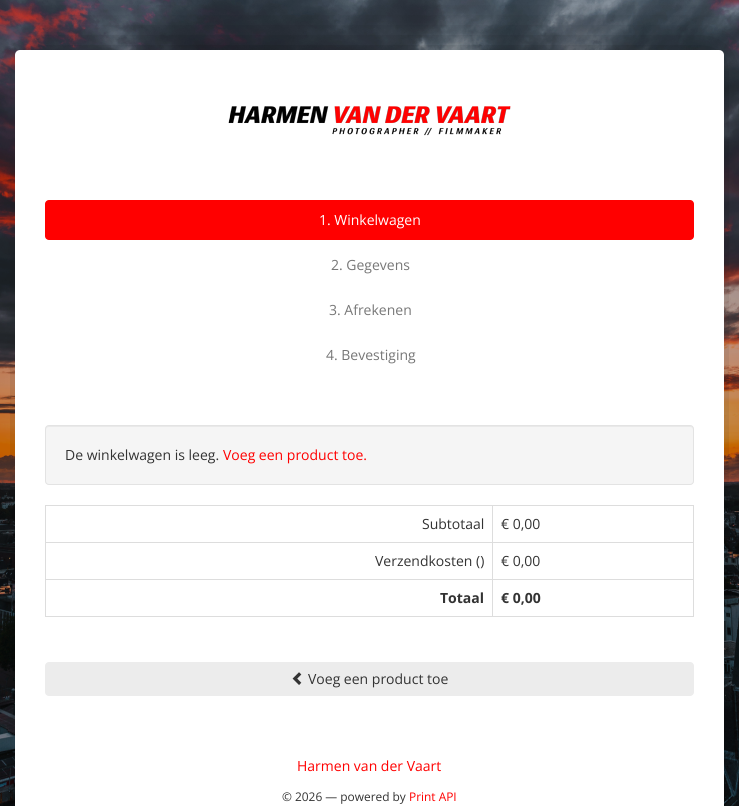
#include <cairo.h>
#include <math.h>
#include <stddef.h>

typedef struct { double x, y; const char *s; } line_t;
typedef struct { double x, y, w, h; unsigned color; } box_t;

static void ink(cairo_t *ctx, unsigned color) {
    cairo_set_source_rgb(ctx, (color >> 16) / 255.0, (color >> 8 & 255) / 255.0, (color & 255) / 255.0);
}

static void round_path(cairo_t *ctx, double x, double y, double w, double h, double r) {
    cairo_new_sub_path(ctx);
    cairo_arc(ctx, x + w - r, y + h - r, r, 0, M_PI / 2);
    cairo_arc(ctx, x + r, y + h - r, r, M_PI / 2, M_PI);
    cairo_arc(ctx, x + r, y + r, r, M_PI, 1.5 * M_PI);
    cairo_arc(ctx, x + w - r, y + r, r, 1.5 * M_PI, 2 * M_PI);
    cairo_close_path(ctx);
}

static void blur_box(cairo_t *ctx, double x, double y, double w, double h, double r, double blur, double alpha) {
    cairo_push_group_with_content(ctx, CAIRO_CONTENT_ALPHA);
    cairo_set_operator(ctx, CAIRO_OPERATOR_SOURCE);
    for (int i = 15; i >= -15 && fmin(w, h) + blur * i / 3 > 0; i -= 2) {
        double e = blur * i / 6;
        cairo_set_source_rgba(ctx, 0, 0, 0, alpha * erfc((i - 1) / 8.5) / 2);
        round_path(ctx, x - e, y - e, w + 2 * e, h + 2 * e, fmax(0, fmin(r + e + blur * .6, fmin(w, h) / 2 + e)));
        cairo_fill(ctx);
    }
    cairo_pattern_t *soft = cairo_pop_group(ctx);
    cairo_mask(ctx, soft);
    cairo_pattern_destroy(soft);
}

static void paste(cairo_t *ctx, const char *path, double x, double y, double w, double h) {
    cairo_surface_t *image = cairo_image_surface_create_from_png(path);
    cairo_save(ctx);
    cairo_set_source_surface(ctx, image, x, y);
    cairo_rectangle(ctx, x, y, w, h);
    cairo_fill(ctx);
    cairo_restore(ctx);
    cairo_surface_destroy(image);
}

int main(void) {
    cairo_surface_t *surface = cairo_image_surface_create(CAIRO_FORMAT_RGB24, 739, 806);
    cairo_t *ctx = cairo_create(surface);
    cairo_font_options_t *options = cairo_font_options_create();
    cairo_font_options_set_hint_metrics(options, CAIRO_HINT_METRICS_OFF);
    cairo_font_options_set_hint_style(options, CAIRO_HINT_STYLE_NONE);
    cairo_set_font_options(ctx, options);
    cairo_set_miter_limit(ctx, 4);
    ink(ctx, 0xFFFFFF);
    cairo_paint(ctx);
    paste(ctx, "media/1.png", 0, 0, 739, 806);
    ink(ctx, 0x000000);
    blur_box(ctx, 15, 50, 709, 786, 5, 30, 0.4);
    ink(ctx, 0xFFFFFF);
    round_path(ctx, 15, 50, 709, 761, 5);
    cairo_fill(ctx);
    paste(ctx, "media/2.png", 228, 106, 283, 30);
    ink(ctx, 0xFF0000);
    round_path(ctx, 45, 200, 649, 40, 4);
    cairo_fill(ctx);
    cairo_select_font_face(ctx, "Open Sans", CAIRO_FONT_SLANT_NORMAL, CAIRO_FONT_WEIGHT_NORMAL);
    cairo_set_font_size(ctx, 14);
    ink(ctx, 0xFFFFFF);
    cairo_move_to(ctx, 319, 225);
    cairo_show_text(ctx, "1. Winkelwagen");
    ink(ctx, 0x777777);
    {
        static const line_t items[] = {
            {331, 270, "2. Gegevens"},
            {329, 315, "3. Afrekenen"},
            {326, 360, "4. Bevestiging"},
        };
        for (size_t i = 0; i < sizeof items / sizeof *items; i++) {
            cairo_move_to(ctx, items[i].x, items[i].y);
            cairo_show_text(ctx, items[i].s);
        }
    }
    ink(ctx, 0xF5F5F5);
    round_path(ctx, 45, 425, 649, 60, 4);
    cairo_fill(ctx);
    ink(ctx, 0xE9E9E9);
    cairo_new_path(ctx);
    cairo_move_to(ctx, 49, 427);
    cairo_line_to(ctx, 690, 427);
    cairo_curve_to(ctx, 692, 427, 693, 428, 693, 430);
    cairo_line_to(ctx, 693, 429);
    cairo_curve_to(ctx, 693, 427, 692, 426, 690, 426);
    cairo_line_to(ctx, 49, 426);
    cairo_curve_to(ctx, 47, 426, 46, 427, 46, 429);
    cairo_line_to(ctx, 46, 430);
    cairo_curve_to(ctx, 46, 428, 47, 427, 49, 427);
    cairo_close_path(ctx);
    cairo_fill(ctx);
    round_path(ctx, 45.5, 425.5, 648, 59, 3.5);
    ink(ctx, 0xE3E3E3);
    cairo_set_line_width(ctx, 1);
    cairo_stroke(ctx);
    ink(ctx, 0x333333);
    cairo_move_to(ctx, 65, 460);
    cairo_show_text(ctx, "De winkelwagen is leeg.");
    ink(ctx, 0xFF0000);
    cairo_move_to(ctx, 223, 460);
    cairo_show_text(ctx, "Voeg een product toe.");
    {
        static const box_t items[] = {
            {45, 505, 649, 1, 0xDDDDDD},
            {693, 505, 1, 112, 0xDDDDDD},
            {45, 616, 649, 1, 0xDDDDDD},
            {45, 505, 1, 112, 0xDDDDDD},
        };
        for (size_t i = 0; i < sizeof items / sizeof *items; i++) {
            ink(ctx, items[i].color);
            cairo_rectangle(ctx, items[i].x, items[i].y, items[i].w, items[i].h);
            cairo_fill(ctx);
        }
    }
    ink(ctx, 0x333333);
    cairo_move_to(ctx, 422, 529);
    cairo_show_text(ctx, "Subtotaal");
    {
        static const box_t items[] = {
            {492, 542, 202, 1, 0xDDDDDD},
            {492, 579, 202, 1, 0xDDDDDD},
            {492, 579, 1, 38, 0xDDDDDD},
            {45, 579, 448, 1, 0xDDDDDD},
            {492, 542, 1, 38, 0xDDDDDD},
            {45, 542, 448, 1, 0xDDDDDD},
            {492, 505, 1, 38, 0xDDDDDD},
        };
        for (size_t i = 0; i < sizeof items / sizeof *items; i++) {
            ink(ctx, items[i].color);
            cairo_rectangle(ctx, items[i].x, items[i].y, items[i].w, items[i].h);
            cairo_fill(ctx);
        }
    }
    ink(ctx, 0x333333);
    {
        static const line_t items[] = {
            {501, 529, "€ 0,00"},
            {375, 566, "Verzendkosten ()"},
            {501, 566, "€ 0,00"},
        };
        for (size_t i = 0; i < sizeof items / sizeof *items; i++) {
            cairo_move_to(ctx, items[i].x, items[i].y);
            cairo_show_text(ctx, items[i].s);
        }
    }
    cairo_select_font_face(ctx, "Open Sans", CAIRO_FONT_SLANT_NORMAL, CAIRO_FONT_WEIGHT_BOLD);
    cairo_move_to(ctx, 440, 603);
    cairo_show_text(ctx, "Totaal");
    cairo_move_to(ctx, 501, 603);
    cairo_show_text(ctx, "€ 0,00");
    ink(ctx, 0xECECEC);
    round_path(ctx, 45, 662, 649, 34, 4);
    cairo_fill(ctx);
    paste(ctx, "media/3.png", 292, 672, 10, 13);
    cairo_select_font_face(ctx, "Open Sans", CAIRO_FONT_SLANT_NORMAL, CAIRO_FONT_WEIGHT_NORMAL);
    ink(ctx, 0x333333);
    cairo_move_to(ctx, 308, 684);
    cairo_show_text(ctx, "Voeg een product toe");
    ink(ctx, 0xFF0000);
    cairo_move_to(ctx, 297, 771);
    cairo_show_text(ctx, "Harmen van der Vaart");
    cairo_set_font_size(ctx, 11.9);
    ink(ctx, 0x333333);
    cairo_move_to(ctx, 282, 801);
    cairo_show_text(ctx, "© 2026 — powered by");
    ink(ctx, 0xFF0000);
    cairo_move_to(ctx, 409, 801);
    cairo_show_text(ctx, "Print API");
    cairo_surface_write_to_png(surface, "image.png");
    cairo_font_options_destroy(options);
    cairo_destroy(ctx);
    cairo_surface_destroy(surface);
    return 0;
}
